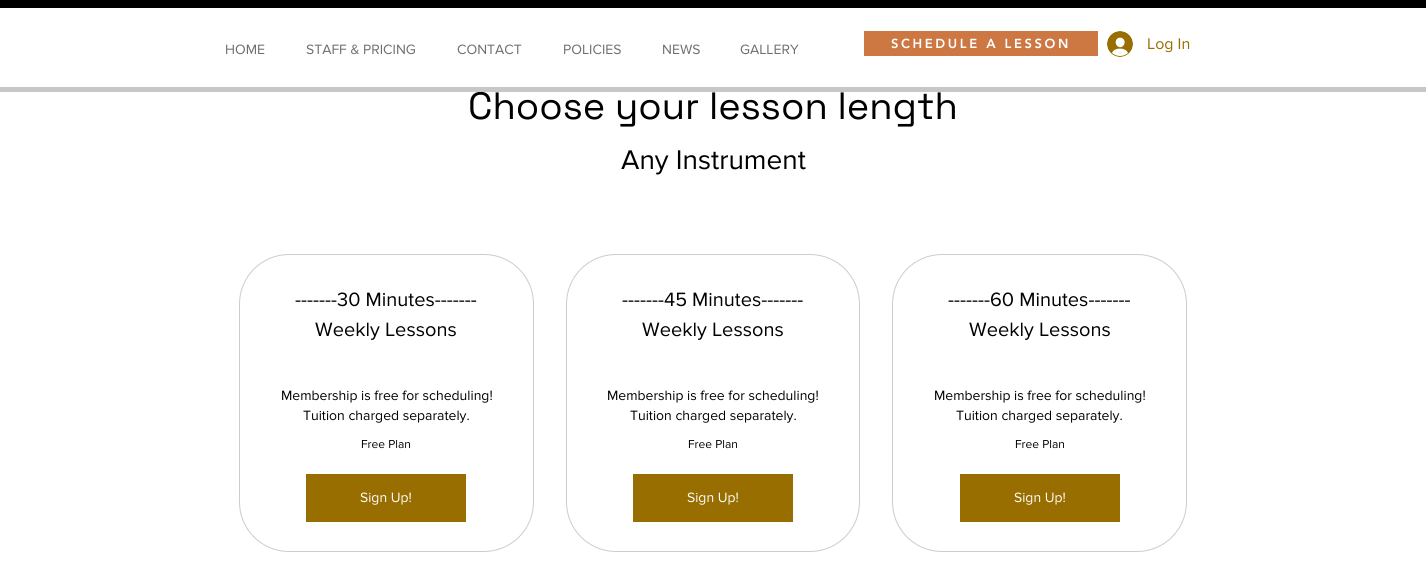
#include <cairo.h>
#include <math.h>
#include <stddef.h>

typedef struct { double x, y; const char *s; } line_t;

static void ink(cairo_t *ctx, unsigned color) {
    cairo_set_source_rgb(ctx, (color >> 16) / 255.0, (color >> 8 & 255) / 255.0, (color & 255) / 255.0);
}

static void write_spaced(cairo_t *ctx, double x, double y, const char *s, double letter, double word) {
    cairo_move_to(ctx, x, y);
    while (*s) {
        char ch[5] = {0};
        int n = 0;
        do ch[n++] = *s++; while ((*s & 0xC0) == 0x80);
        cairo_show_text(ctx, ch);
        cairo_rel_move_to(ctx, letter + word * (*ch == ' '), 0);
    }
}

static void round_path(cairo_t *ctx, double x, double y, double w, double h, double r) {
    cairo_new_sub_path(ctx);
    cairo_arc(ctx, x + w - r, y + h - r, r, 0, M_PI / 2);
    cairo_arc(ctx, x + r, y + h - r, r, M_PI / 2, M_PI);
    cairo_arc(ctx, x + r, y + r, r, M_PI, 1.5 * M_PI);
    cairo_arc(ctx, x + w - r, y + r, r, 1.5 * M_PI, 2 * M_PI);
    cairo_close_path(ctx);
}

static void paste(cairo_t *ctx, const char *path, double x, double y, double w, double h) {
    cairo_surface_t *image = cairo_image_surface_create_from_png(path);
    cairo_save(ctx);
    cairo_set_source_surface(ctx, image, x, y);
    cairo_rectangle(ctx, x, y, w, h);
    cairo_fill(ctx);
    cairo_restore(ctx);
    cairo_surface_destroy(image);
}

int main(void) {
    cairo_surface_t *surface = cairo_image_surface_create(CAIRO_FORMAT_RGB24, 1426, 571);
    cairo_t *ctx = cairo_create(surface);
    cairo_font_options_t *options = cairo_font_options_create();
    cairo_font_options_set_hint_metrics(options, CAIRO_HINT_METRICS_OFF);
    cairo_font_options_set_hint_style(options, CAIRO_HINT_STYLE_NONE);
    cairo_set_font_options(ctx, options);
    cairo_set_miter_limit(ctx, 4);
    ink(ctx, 0xFFFFFF);
    cairo_paint(ctx);
    ink(ctx, 0x000000);
    cairo_rectangle(ctx, 0, 0, 1426, 8);
    cairo_fill(ctx);
    cairo_select_font_face(ctx, "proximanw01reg", CAIRO_FONT_SLANT_NORMAL, CAIRO_FONT_WEIGHT_NORMAL);
    cairo_set_font_size(ctx, 14);
    ink(ctx, 0x6E6E6E);
    {
        static const line_t items[] = {
            {225, 54, "HOME"},
            {306, 54, "STAFF & PRICING"},
            {457, 54, "CONTACT"},
            {563, 54, "POLICIES"},
            {662, 54, "NEWS"},
            {740, 54, "GALLERY"},
        };
        for (size_t i = 0; i < sizeof items / sizeof *items; i++) {
            cairo_move_to(ctx, items[i].x, items[i].y);
            cairo_show_text(ctx, items[i].s);
        }
    }
    ink(ctx, 0xCD7843);
    cairo_rectangle(ctx, 864, 31, 234, 25);
    cairo_fill(ctx);
    cairo_select_font_face(ctx, "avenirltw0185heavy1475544 Black", CAIRO_FONT_SLANT_NORMAL, CAIRO_FONT_WEIGHT_NORMAL);
    cairo_set_font_size(ctx, 13);
    ink(ctx, 0xFFFFFF);
    write_spaced(ctx, 891, 48, "SCHEDULE A LESSON", 2.6, 0);
    paste(ctx, "media/1.png", 1107, 31, 26, 26);
    cairo_select_font_face(ctx, "proximanw01reg", CAIRO_FONT_SLANT_NORMAL, CAIRO_FONT_WEIGHT_NORMAL);
    cairo_set_font_size(ctx, 16);
    ink(ctx, 0x996E00);
    cairo_move_to(ctx, 1147, 49);
    cairo_show_text(ctx, "Log In");
    cairo_select_font_face(ctx, "Space Grotesk", CAIRO_FONT_SLANT_NORMAL, CAIRO_FONT_WEIGHT_NORMAL);
    cairo_set_font_size(ctx, 38);
    ink(ctx, 0x000000);
    cairo_move_to(ctx, 468, 119);
    cairo_show_text(ctx, "Choose your lesson length");
    ink(ctx, 0xC7C7C7);
    cairo_rectangle(ctx, 0, 87, 1426, 5);
    cairo_fill(ctx);
    cairo_select_font_face(ctx, "proximanw01reg", CAIRO_FONT_SLANT_NORMAL, CAIRO_FONT_WEIGHT_NORMAL);
    cairo_set_font_size(ctx, 28);
    ink(ctx, 0x000000);
    cairo_move_to(ctx, 621, 169);
    cairo_show_text(ctx, "Any Instrument");
    round_path(ctx, 239.5, 254.5, 294, 297, 49.5);
    ink(ctx, 0xCCCCCC);
    cairo_set_line_width(ctx, 1);
    cairo_stroke(ctx);
    cairo_set_font_size(ctx, 20);
    ink(ctx, 0x000000);
    cairo_move_to(ctx, 295, 306);
    cairo_show_text(ctx, "-------30 Minutes-------");
    cairo_move_to(ctx, 315, 336);
    cairo_show_text(ctx, "Weekly Lessons");
    cairo_set_font_size(ctx, 14);
    cairo_move_to(ctx, 281, 400);
    cairo_show_text(ctx, "Membership is free for scheduling!");
    cairo_move_to(ctx, 303, 420);
    cairo_show_text(ctx, "Tuition charged separately.");
    cairo_set_font_size(ctx, 12);
    cairo_move_to(ctx, 361, 448);
    cairo_show_text(ctx, "Free Plan");
    ink(ctx, 0x996E00);
    cairo_rectangle(ctx, 306, 474, 160, 48);
    cairo_fill(ctx);
    cairo_set_font_size(ctx, 14);
    ink(ctx, 0xFFFFFF);
    cairo_move_to(ctx, 360, 502);
    cairo_show_text(ctx, "Sign Up!");
    round_path(ctx, 566.5, 254.5, 293, 297, 49.5);
    ink(ctx, 0xCCCCCC);
    cairo_stroke(ctx);
    cairo_set_font_size(ctx, 20);
    ink(ctx, 0x000000);
    cairo_move_to(ctx, 622, 306);
    cairo_show_text(ctx, "-------45 Minutes-------");
    cairo_move_to(ctx, 642, 336);
    cairo_show_text(ctx, "Weekly Lessons");
    cairo_set_font_size(ctx, 14);
    cairo_move_to(ctx, 607, 400);
    cairo_show_text(ctx, "Membership is free for scheduling!");
    cairo_move_to(ctx, 630, 420);
    cairo_show_text(ctx, "Tuition charged separately.");
    cairo_set_font_size(ctx, 12);
    cairo_move_to(ctx, 688, 448);
    cairo_show_text(ctx, "Free Plan");
    ink(ctx, 0x996E00);
    cairo_rectangle(ctx, 633, 474, 160, 48);
    cairo_fill(ctx);
    cairo_set_font_size(ctx, 14);
    ink(ctx, 0xFFFFFF);
    cairo_move_to(ctx, 687, 502);
    cairo_show_text(ctx, "Sign Up!");
    round_path(ctx, 892.5, 254.5, 294, 297, 49.5);
    ink(ctx, 0xCCCCCC);
    cairo_stroke(ctx);
    cairo_set_font_size(ctx, 20);
    ink(ctx, 0x000000);
    cairo_move_to(ctx, 948, 306);
    cairo_show_text(ctx, "-------60 Minutes-------");
    cairo_move_to(ctx, 969, 336);
    cairo_show_text(ctx, "Weekly Lessons");
    cairo_set_font_size(ctx, 14);
    cairo_move_to(ctx, 934, 400);
    cairo_show_text(ctx, "Membership is free for scheduling!");
    cairo_move_to(ctx, 956, 420);
    cairo_show_text(ctx, "Tuition charged separately.");
    cairo_set_font_size(ctx, 12);
    cairo_move_to(ctx, 1015, 448);
    cairo_show_text(ctx, "Free Plan");
    ink(ctx, 0x996E00);
    cairo_rectangle(ctx, 960, 474, 160, 48);
    cairo_fill(ctx);
    cairo_set_font_size(ctx, 14);
    ink(ctx, 0xFFFFFF);
    cairo_move_to(ctx, 1014, 502);
    cairo_show_text(ctx, "Sign Up!");
    cairo_surface_write_to_png(surface, "image.png");
    cairo_font_options_destroy(options);
    cairo_destroy(ctx);
    cairo_surface_destroy(surface);
    return 0;
}
